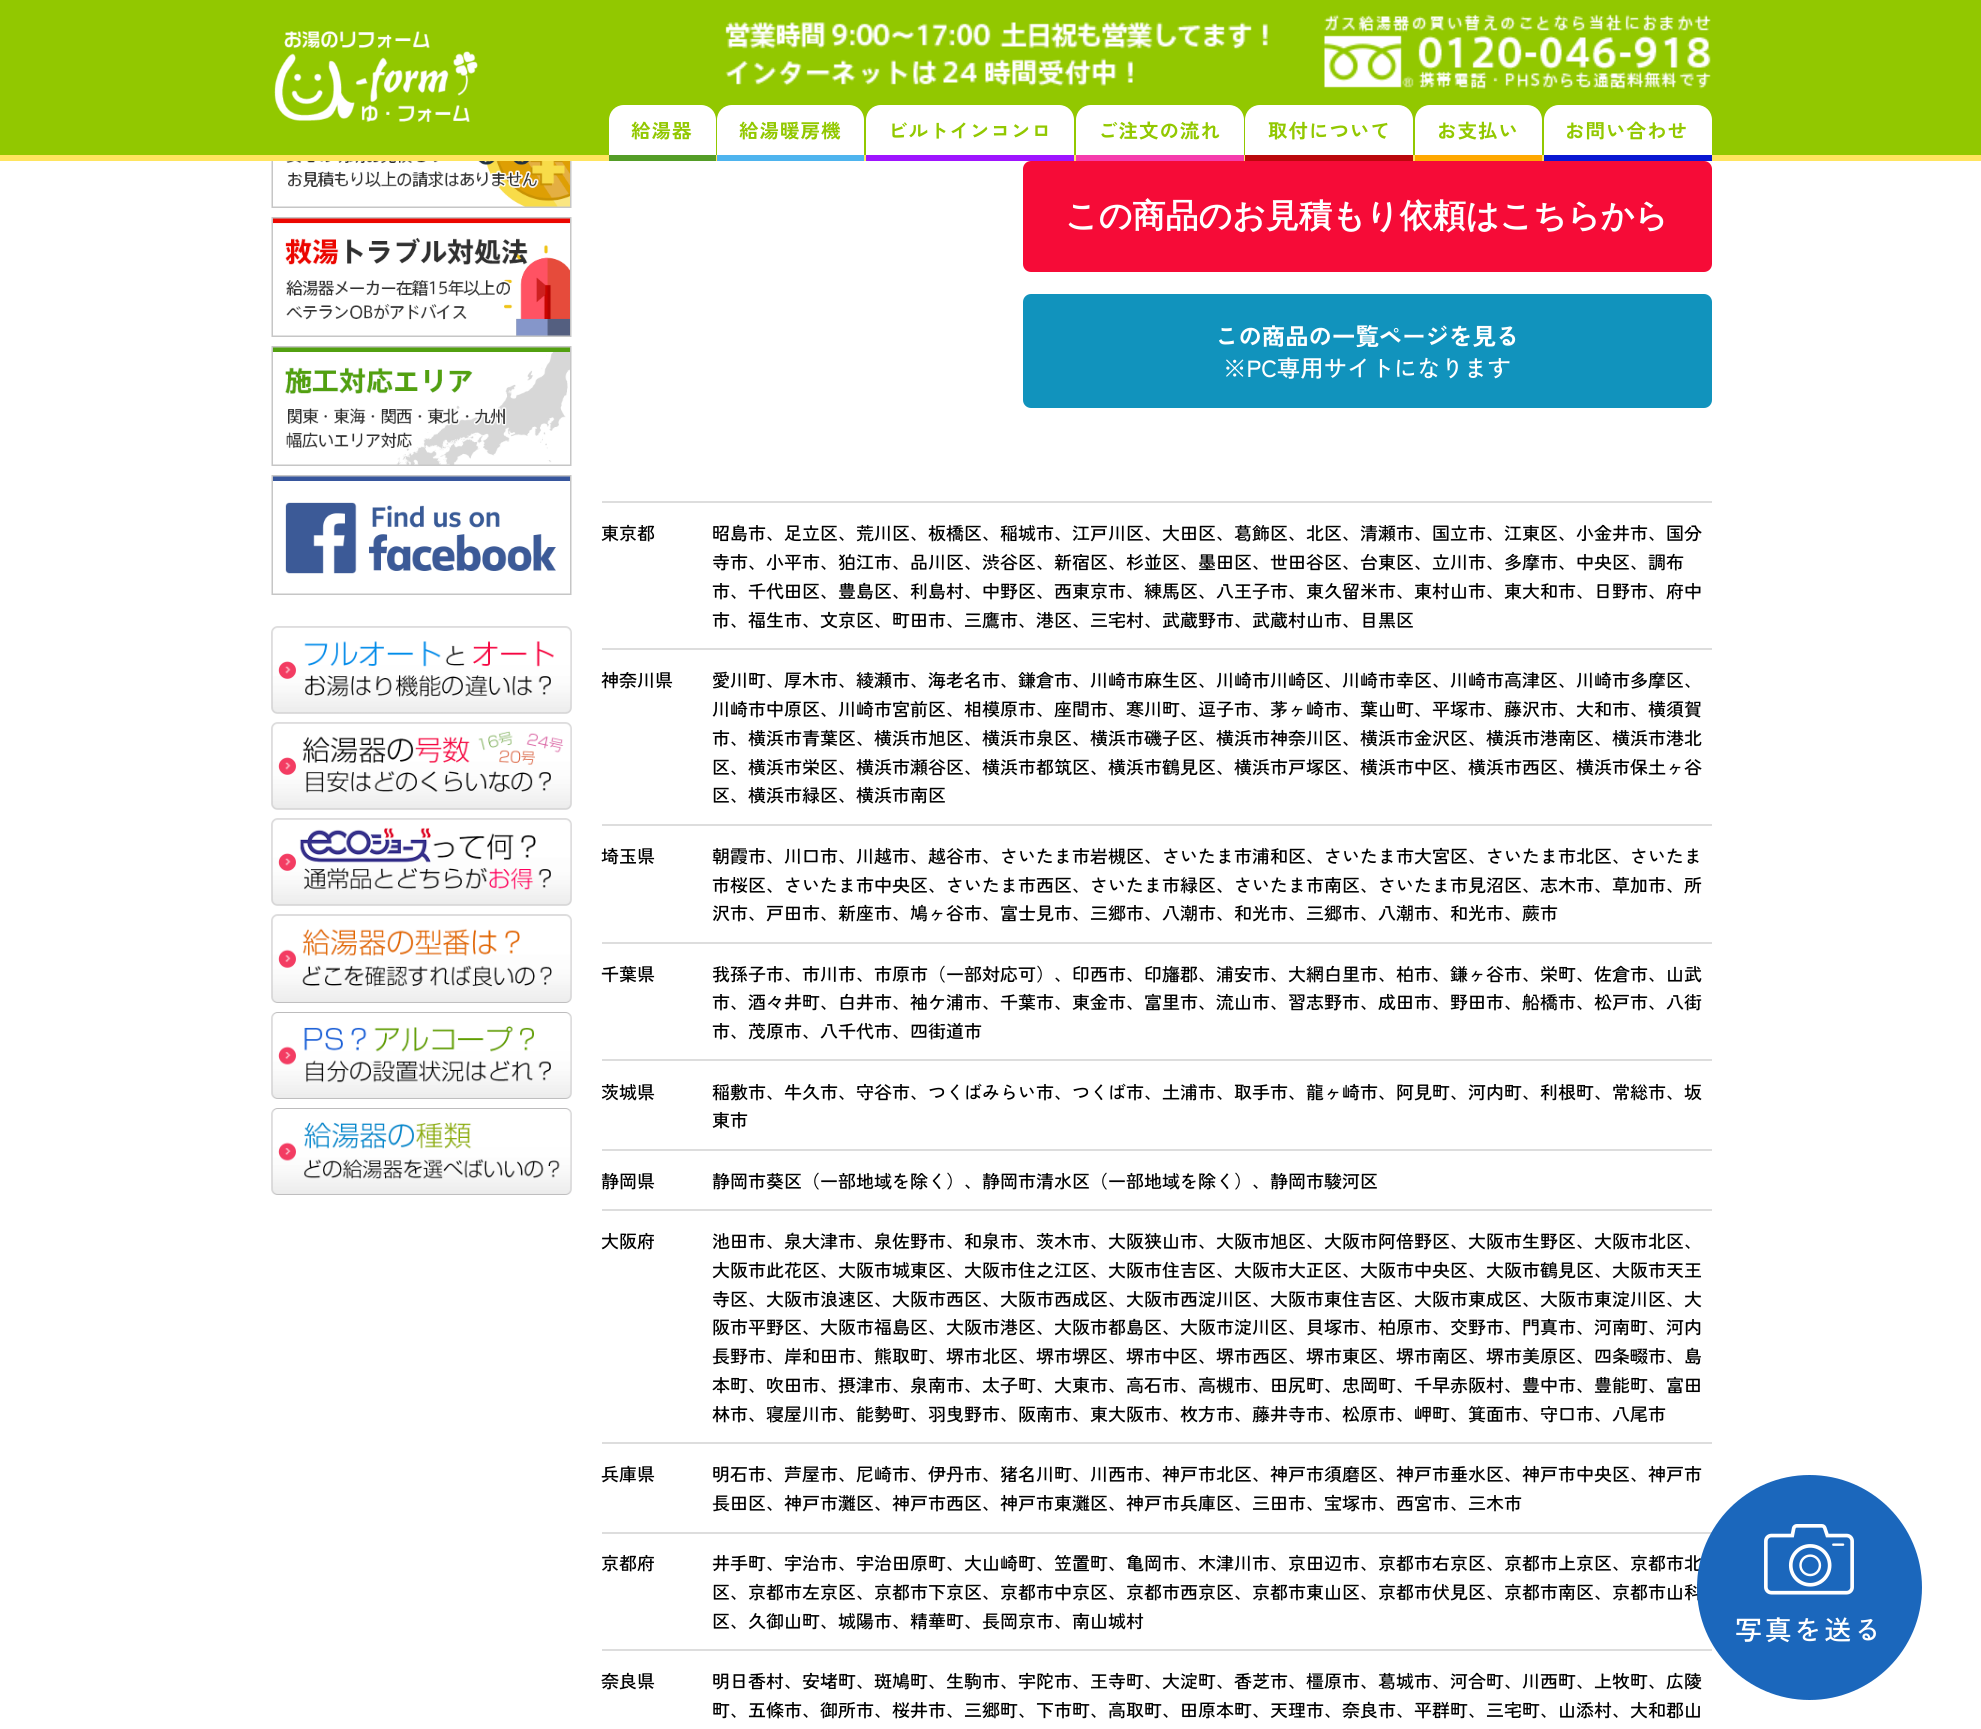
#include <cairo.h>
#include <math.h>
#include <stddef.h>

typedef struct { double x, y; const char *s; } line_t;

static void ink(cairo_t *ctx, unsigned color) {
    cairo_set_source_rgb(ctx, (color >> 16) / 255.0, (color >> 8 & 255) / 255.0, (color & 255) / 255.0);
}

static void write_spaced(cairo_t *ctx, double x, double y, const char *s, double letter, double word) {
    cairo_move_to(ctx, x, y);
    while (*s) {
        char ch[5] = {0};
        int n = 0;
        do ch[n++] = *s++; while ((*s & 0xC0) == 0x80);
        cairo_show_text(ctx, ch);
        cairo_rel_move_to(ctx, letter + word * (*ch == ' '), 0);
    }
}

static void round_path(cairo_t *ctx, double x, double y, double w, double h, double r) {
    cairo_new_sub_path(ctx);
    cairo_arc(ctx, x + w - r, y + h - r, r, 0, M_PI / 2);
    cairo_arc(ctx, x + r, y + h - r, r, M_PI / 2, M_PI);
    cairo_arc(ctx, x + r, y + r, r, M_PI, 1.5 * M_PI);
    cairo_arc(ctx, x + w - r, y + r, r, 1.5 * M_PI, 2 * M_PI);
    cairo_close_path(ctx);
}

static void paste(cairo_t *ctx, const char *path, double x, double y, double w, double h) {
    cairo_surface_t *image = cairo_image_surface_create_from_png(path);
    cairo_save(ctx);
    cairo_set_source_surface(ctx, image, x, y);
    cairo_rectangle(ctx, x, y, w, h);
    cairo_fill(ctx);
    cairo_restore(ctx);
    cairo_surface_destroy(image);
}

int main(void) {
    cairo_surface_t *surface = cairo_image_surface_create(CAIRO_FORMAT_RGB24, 1981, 1729);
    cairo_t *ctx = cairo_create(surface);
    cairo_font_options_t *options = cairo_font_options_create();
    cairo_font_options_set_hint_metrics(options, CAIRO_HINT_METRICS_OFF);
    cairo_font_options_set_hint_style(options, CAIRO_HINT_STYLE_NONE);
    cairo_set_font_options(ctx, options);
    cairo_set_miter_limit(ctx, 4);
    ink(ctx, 0xFFFFFF);
    cairo_paint(ctx);
    ink(ctx, 0x92C800);
    cairo_rectangle(ctx, 0, 0, 1981, 155);
    cairo_fill(ctx);
    ink(ctx, 0xFFE55F);
    cairo_rectangle(ctx, 0, 155, 1981, 6);
    cairo_fill(ctx);
    paste(ctx, "media/1.png", 1324, 14, 387, 75);
    paste(ctx, "media/2.png", 274, 31, 204, 91);
    paste(ctx, "media/3.png", 725, 22, 543, 64);
    ink(ctx, 0xFFFFFF);
    cairo_new_path(ctx);
    cairo_move_to(ctx, 624, 105);
    cairo_line_to(ctx, 701, 105);
    cairo_curve_to(ctx, 709.5, 105, 716, 111.5, 716, 120);
    cairo_line_to(ctx, 716, 161);
    cairo_line_to(ctx, 609, 161);
    cairo_line_to(ctx, 609, 120);
    cairo_curve_to(ctx, 609, 111.5, 615.5, 105, 624, 105);
    cairo_close_path(ctx);
    cairo_fill(ctx);
    ink(ctx, 0x549D27);
    cairo_rectangle(ctx, 609, 155, 107, 6);
    cairo_fill(ctx);
    cairo_select_font_face(ctx, "Zen Kaku Gothic New", CAIRO_FONT_SLANT_NORMAL, CAIRO_FONT_WEIGHT_BOLD);
    cairo_set_font_size(ctx, 19.5);
    ink(ctx, 0x92C800);
    write_spaced(ctx, 631, 138, "給湯器", 1, 0);
    ink(ctx, 0xFFFFFF);
    cairo_new_path(ctx);
    cairo_move_to(ctx, 732, 105);
    cairo_line_to(ctx, 849, 105);
    cairo_curve_to(ctx, 857.5, 105, 864, 111.5, 864, 120);
    cairo_line_to(ctx, 864, 161);
    cairo_line_to(ctx, 717, 161);
    cairo_line_to(ctx, 717, 120);
    cairo_curve_to(ctx, 717, 111.5, 723.5, 105, 732, 105);
    cairo_close_path(ctx);
    cairo_fill(ctx);
    ink(ctx, 0x4EB4EE);
    cairo_rectangle(ctx, 717, 155, 147, 6);
    cairo_fill(ctx);
    ink(ctx, 0x92C800);
    write_spaced(ctx, 739, 138, "給湯暖房機", 1, 0);
    ink(ctx, 0xFFFFFF);
    cairo_new_path(ctx);
    cairo_move_to(ctx, 881, 105);
    cairo_line_to(ctx, 1059, 105);
    cairo_curve_to(ctx, 1067.5, 105, 1074, 111.5, 1074, 120);
    cairo_line_to(ctx, 1074, 161);
    cairo_line_to(ctx, 866, 161);
    cairo_line_to(ctx, 866, 120);
    cairo_curve_to(ctx, 866, 111.5, 872.5, 105, 881, 105);
    cairo_close_path(ctx);
    cairo_fill(ctx);
    ink(ctx, 0x9E14FF);
    cairo_rectangle(ctx, 866, 155, 208, 6);
    cairo_fill(ctx);
    ink(ctx, 0x92C800);
    write_spaced(ctx, 888, 138, "ビルトインコンロ", 1, 0);
    ink(ctx, 0xFFFFFF);
    cairo_new_path(ctx);
    cairo_move_to(ctx, 1091, 105);
    cairo_line_to(ctx, 1229, 105);
    cairo_curve_to(ctx, 1237.5, 105, 1244, 111.5, 1244, 120);
    cairo_line_to(ctx, 1244, 161);
    cairo_line_to(ctx, 1076, 161);
    cairo_line_to(ctx, 1076, 120);
    cairo_curve_to(ctx, 1076, 111.5, 1082.5, 105, 1091, 105);
    cairo_close_path(ctx);
    cairo_fill(ctx);
    ink(ctx, 0xF53CAD);
    cairo_rectangle(ctx, 1076, 155, 168, 6);
    cairo_fill(ctx);
    ink(ctx, 0x92C800);
    write_spaced(ctx, 1098, 138, "ご注文の流れ", 1, 0);
    ink(ctx, 0xFFFFFF);
    cairo_new_path(ctx);
    cairo_move_to(ctx, 1260, 105);
    cairo_line_to(ctx, 1398, 105);
    cairo_curve_to(ctx, 1406.5, 105, 1413, 111.5, 1413, 120);
    cairo_line_to(ctx, 1413, 161);
    cairo_line_to(ctx, 1245, 161);
    cairo_line_to(ctx, 1245, 120);
    cairo_curve_to(ctx, 1245, 111.5, 1251.5, 105, 1260, 105);
    cairo_close_path(ctx);
    cairo_fill(ctx);
    ink(ctx, 0xBA080C);
    cairo_rectangle(ctx, 1245, 155, 168, 6);
    cairo_fill(ctx);
    ink(ctx, 0x92C800);
    write_spaced(ctx, 1268, 138, "取付について", 1, 0);
    ink(ctx, 0xFFFFFF);
    cairo_new_path(ctx);
    cairo_move_to(ctx, 1430, 105);
    cairo_line_to(ctx, 1527, 105);
    cairo_curve_to(ctx, 1535.5, 105, 1542, 111.5, 1542, 120);
    cairo_line_to(ctx, 1542, 161);
    cairo_line_to(ctx, 1415, 161);
    cairo_line_to(ctx, 1415, 120);
    cairo_curve_to(ctx, 1415, 111.5, 1421.5, 105, 1430, 105);
    cairo_close_path(ctx);
    cairo_fill(ctx);
    ink(ctx, 0xFFA800);
    cairo_rectangle(ctx, 1415, 155, 127, 6);
    cairo_fill(ctx);
    ink(ctx, 0x92C800);
    write_spaced(ctx, 1437, 138, "お支払い", 1, 0);
    ink(ctx, 0xFFFFFF);
    cairo_new_path(ctx);
    cairo_move_to(ctx, 1559, 105);
    cairo_line_to(ctx, 1697, 105);
    cairo_curve_to(ctx, 1705.5, 105, 1712, 111.5, 1712, 120);
    cairo_line_to(ctx, 1712, 161);
    cairo_line_to(ctx, 1544, 161);
    cairo_line_to(ctx, 1544, 120);
    cairo_curve_to(ctx, 1544, 111.5, 1550.5, 105, 1559, 105);
    cairo_close_path(ctx);
    cairo_fill(ctx);
    ink(ctx, 0x0917D2);
    cairo_rectangle(ctx, 1544, 155, 168, 6);
    cairo_fill(ctx);
    ink(ctx, 0x92C800);
    write_spaced(ctx, 1565, 138, "お問い合わせ", 1, 0);
    paste(ctx, "media/4.png", 271, 161, 301, 47);
    paste(ctx, "media/5.png", 271, 217, 301, 120);
    paste(ctx, "media/6.png", 271, 346, 301, 120);
    paste(ctx, "media/7.png", 271, 475, 301, 120);
    paste(ctx, "media/8.png", 271, 626, 301, 88);
    paste(ctx, "media/9.png", 271, 722, 301, 88);
    paste(ctx, "media/10.png", 271, 818, 301, 88);
    paste(ctx, "media/11.png", 271, 914, 301, 89);
    paste(ctx, "media/12.png", 271, 1012, 301, 87);
    paste(ctx, "media/13.png", 271, 1108, 301, 87);
    ink(ctx, 0xF60B37);
    round_path(ctx, 1024.5, 162.5, 686, 108, 6.5);
    cairo_fill_preserve(ctx);
    cairo_set_line_width(ctx, 3);
    cairo_stroke(ctx);
    cairo_select_font_face(ctx, "WenQuanYi Zen Hei", CAIRO_FONT_SLANT_NORMAL, CAIRO_FONT_WEIGHT_BOLD);
    cairo_set_font_size(ctx, 33);
    ink(ctx, 0xFFFFFF);
    cairo_move_to(ctx, 1065, 227);
    cairo_show_text(ctx, "この商品のお見積もり依頼はこちらから");
    ink(ctx, 0x1193BD);
    round_path(ctx, 1024.5, 295.5, 686, 111, 6.5);
    cairo_fill_preserve(ctx);
    cairo_stroke(ctx);
    cairo_select_font_face(ctx, "Zen Kaku Gothic New", CAIRO_FONT_SLANT_NORMAL, CAIRO_FONT_WEIGHT_BOLD);
    cairo_set_font_size(ctx, 23.4);
    ink(ctx, 0xFFFFFF);
    cairo_move_to(ctx, 1215, 345);
    cairo_show_text(ctx, "この商品の一覧ページを見る");
    cairo_select_font_face(ctx, "Zen Kaku Gothic New Medium", CAIRO_FONT_SLANT_NORMAL, CAIRO_FONT_WEIGHT_NORMAL);
    cairo_move_to(ctx, 1223, 377);
    cairo_show_text(ctx, "※PC専用サイトになります");
    ink(ctx, 0xDDDDDD);
    cairo_rectangle(ctx, 602, 501, 1110, 2);
    cairo_fill(ctx);
    cairo_set_font_size(ctx, 18);
    ink(ctx, 0x000000);
    {
        static const line_t items[] = {
            {601, 540, "東京都"},
            {712, 540, "昭島市、足立区、荒川区、板橋区、稲城市、江戸川区、大田区、葛飾区、北区、清瀬市、国立市、江東区、小金井市、国分"},
            {712, 569, "寺市、小平市、狛江市、品川区、渋谷区、新宿区、杉並区、墨田区、世田谷区、台東区、立川市、多摩市、中央区、調布"},
            {712, 598, "市、千代田区、豊島区、利島村、中野区、西東京市、練馬区、八王子市、東久留米市、東村山市、東大和市、日野市、府中"},
            {712, 627, "市、福生市、文京区、町田市、三鷹市、港区、三宅村、武蔵野市、武蔵村山市、目黒区"},
        };
        for (size_t i = 0; i < sizeof items / sizeof *items; i++) {
            cairo_move_to(ctx, items[i].x, items[i].y);
            cairo_show_text(ctx, items[i].s);
        }
    }
    ink(ctx, 0xDDDDDD);
    cairo_rectangle(ctx, 602, 648, 1110, 2);
    cairo_fill(ctx);
    ink(ctx, 0x000000);
    {
        static const line_t items[] = {
            {601, 687, "神奈川県"},
            {712, 687, "愛川町、厚木市、綾瀬市、海老名市、鎌倉市、川崎市麻生区、川崎市川崎区、川崎市幸区、川崎市高津区、川崎市多摩区、"},
            {712, 716, "川崎市中原区、川崎市宮前区、相模原市、座間市、寒川町、逗子市、茅ヶ崎市、葉山町、平塚市、藤沢市、大和市、横須賀"},
            {712, 745, "市、横浜市青葉区、横浜市旭区、横浜市泉区、横浜市磯子区、横浜市神奈川区、横浜市金沢区、横浜市港南区、横浜市港北"},
            {712, 774, "区、横浜市栄区、横浜市瀬谷区、横浜市都筑区、横浜市鶴見区、横浜市戸塚区、横浜市中区、横浜市西区、横浜市保土ヶ谷"},
            {712, 802, "区、横浜市緑区、横浜市南区"},
        };
        for (size_t i = 0; i < sizeof items / sizeof *items; i++) {
            cairo_move_to(ctx, items[i].x, items[i].y);
            cairo_show_text(ctx, items[i].s);
        }
    }
    ink(ctx, 0xDDDDDD);
    cairo_rectangle(ctx, 602, 824, 1110, 2);
    cairo_fill(ctx);
    ink(ctx, 0x000000);
    {
        static const line_t items[] = {
            {601, 863, "埼玉県"},
            {712, 863, "朝霞市、川口市、川越市、越谷市、さいたま市岩槻区、さいたま市浦和区、さいたま市大宮区、さいたま市北区、さいたま"},
            {712, 892, "市桜区、さいたま市中央区、さいたま市西区、さいたま市緑区、さいたま市南区、さいたま市見沼区、志木市、草加市、所"},
            {712, 920, "沢市、戸田市、新座市、鳩ヶ谷市、富士見市、三郷市、八潮市、和光市、三郷市、八潮市、和光市、蕨市"},
        };
        for (size_t i = 0; i < sizeof items / sizeof *items; i++) {
            cairo_move_to(ctx, items[i].x, items[i].y);
            cairo_show_text(ctx, items[i].s);
        }
    }
    ink(ctx, 0xDDDDDD);
    cairo_rectangle(ctx, 602, 942, 1110, 2);
    cairo_fill(ctx);
    ink(ctx, 0x000000);
    {
        static const line_t items[] = {
            {601, 981, "千葉県"},
            {712, 981, "我孫子市、市川市、市原市（一部対応可）、印西市、印旛郡、浦安市、大網白里市、柏市、鎌ヶ谷市、栄町、佐倉市、山武"},
            {712, 1009, "市、酒々井町、白井市、袖ケ浦市、千葉市、東金市、富里市、流山市、習志野市、成田市、野田市、船橋市、松戸市、八街"},
            {712, 1038, "市、茂原市、八千代市、四街道市"},
        };
        for (size_t i = 0; i < sizeof items / sizeof *items; i++) {
            cairo_move_to(ctx, items[i].x, items[i].y);
            cairo_show_text(ctx, items[i].s);
        }
    }
    ink(ctx, 0xDDDDDD);
    cairo_rectangle(ctx, 602, 1059, 1110, 2);
    cairo_fill(ctx);
    ink(ctx, 0x000000);
    {
        static const line_t items[] = {
            {601, 1099, "茨城県"},
            {712, 1099, "稲敷市、牛久市、守谷市、つくばみらい市、つくば市、土浦市、取手市、龍ヶ崎市、阿見町、河内町、利根町、常総市、坂"},
            {712, 1127, "東市"},
        };
        for (size_t i = 0; i < sizeof items / sizeof *items; i++) {
            cairo_move_to(ctx, items[i].x, items[i].y);
            cairo_show_text(ctx, items[i].s);
        }
    }
    ink(ctx, 0xDDDDDD);
    cairo_rectangle(ctx, 602, 1149, 1110, 2);
    cairo_fill(ctx);
    ink(ctx, 0x000000);
    cairo_move_to(ctx, 601, 1188);
    cairo_show_text(ctx, "静岡県");
    cairo_move_to(ctx, 712, 1188);
    cairo_show_text(ctx, "静岡市葵区（一部地域を除く）、静岡市清水区（一部地域を除く）、静岡市駿河区");
    ink(ctx, 0xDDDDDD);
    cairo_rectangle(ctx, 602, 1209, 1110, 2);
    cairo_fill(ctx);
    ink(ctx, 0x000000);
    {
        static const line_t items[] = {
            {601, 1248, "大阪府"},
            {712, 1248, "池田市、泉大津市、泉佐野市、和泉市、茨木市、大阪狭山市、大阪市旭区、大阪市阿倍野区、大阪市生野区、大阪市北区、"},
            {712, 1277, "大阪市此花区、大阪市城東区、大阪市住之江区、大阪市住吉区、大阪市大正区、大阪市中央区、大阪市鶴見区、大阪市天王"},
            {712, 1306, "寺区、大阪市浪速区、大阪市西区、大阪市西成区、大阪市西淀川区、大阪市東住吉区、大阪市東成区、大阪市東淀川区、大"},
            {712, 1334, "阪市平野区、大阪市福島区、大阪市港区、大阪市都島区、大阪市淀川区、貝塚市、柏原市、交野市、門真市、河南町、河内"},
            {712, 1363, "長野市、岸和田市、熊取町、堺市北区、堺市堺区、堺市中区、堺市西区、堺市東区、堺市南区、堺市美原区、四条畷市、島"},
            {712, 1392, "本町、吹田市、摂津市、泉南市、太子町、大東市、高石市、高槻市、田尻町、忠岡町、千早赤阪村、豊中市、豊能町、富田"},
            {712, 1421, "林市、寝屋川市、能勢町、羽曳野市、阪南市、東大阪市、枚方市、藤井寺市、松原市、岬町、箕面市、守口市、八尾市"},
        };
        for (size_t i = 0; i < sizeof items / sizeof *items; i++) {
            cairo_move_to(ctx, items[i].x, items[i].y);
            cairo_show_text(ctx, items[i].s);
        }
    }
    ink(ctx, 0xDDDDDD);
    cairo_rectangle(ctx, 602, 1442, 1110, 2);
    cairo_fill(ctx);
    ink(ctx, 0x000000);
    {
        static const line_t items[] = {
            {601, 1481, "兵庫県"},
            {712, 1481, "明石市、芦屋市、尼崎市、伊丹市、猪名川町、川西市、神戸市北区、神戸市須磨区、神戸市垂水区、神戸市中央区、神戸市"},
            {712, 1510, "長田区、神戸市灘区、神戸市西区、神戸市東灘区、神戸市兵庫区、三田市、宝塚市、西宮市、三木市"},
        };
        for (size_t i = 0; i < sizeof items / sizeof *items; i++) {
            cairo_move_to(ctx, items[i].x, items[i].y);
            cairo_show_text(ctx, items[i].s);
        }
    }
    ink(ctx, 0xDDDDDD);
    cairo_rectangle(ctx, 602, 1532, 1110, 2);
    cairo_fill(ctx);
    ink(ctx, 0x000000);
    {
        static const line_t items[] = {
            {601, 1570, "京都府"},
            {712, 1570, "井手町、宇治市、宇治田原町、大山崎町、笠置町、亀岡市、木津川市、京田辺市、京都市右京区、京都市上京区、京都市北"},
            {712, 1599, "区、京都市左京区、京都市下京区、京都市中京区、京都市西京区、京都市東山区、京都市伏見区、京都市南区、京都市山科"},
            {712, 1628, "区、久御山町、城陽市、精華町、長岡京市、南山城村"},
        };
        for (size_t i = 0; i < sizeof items / sizeof *items; i++) {
            cairo_move_to(ctx, items[i].x, items[i].y);
            cairo_show_text(ctx, items[i].s);
        }
    }
    ink(ctx, 0xDDDDDD);
    cairo_rectangle(ctx, 602, 1649, 1110, 2);
    cairo_fill(ctx);
    ink(ctx, 0x000000);
    {
        static const line_t items[] = {
            {601, 1688, "奈良県"},
            {712, 1688, "明日香村、安堵町、斑鳩町、生駒市、宇陀市、王寺町、大淀町、香芝市、橿原市、葛城市、河合町、川西町、上牧町、広陵"},
            {712, 1717, "町、五條市、御所市、桜井市、三郷町、下市町、高取町、田原本町、天理市、奈良市、平群町、三宅町、山添村、大和郡山"},
        };
        for (size_t i = 0; i < sizeof items / sizeof *items; i++) {
            cairo_move_to(ctx, items[i].x, items[i].y);
            cairo_show_text(ctx, items[i].s);
        }
    }
    ink(ctx, 0x1B67BC);
    cairo_new_path(ctx);
    cairo_arc(ctx, 1809.5, 1587.5, 112.5, 0, 2 * M_PI);
    cairo_fill(ctx);
    paste(ctx, "media/14.png", 1764, 1524, 90, 71);
    cairo_set_font_size(ctx, 27);
    ink(ctx, 0xFFFFFF);
    write_spaced(ctx, 1735, 1640, "写真を送る", 2.75, 0);
    cairo_surface_write_to_png(surface, "image.png");
    cairo_font_options_destroy(options);
    cairo_destroy(ctx);
    cairo_surface_destroy(surface);
    return 0;
}
